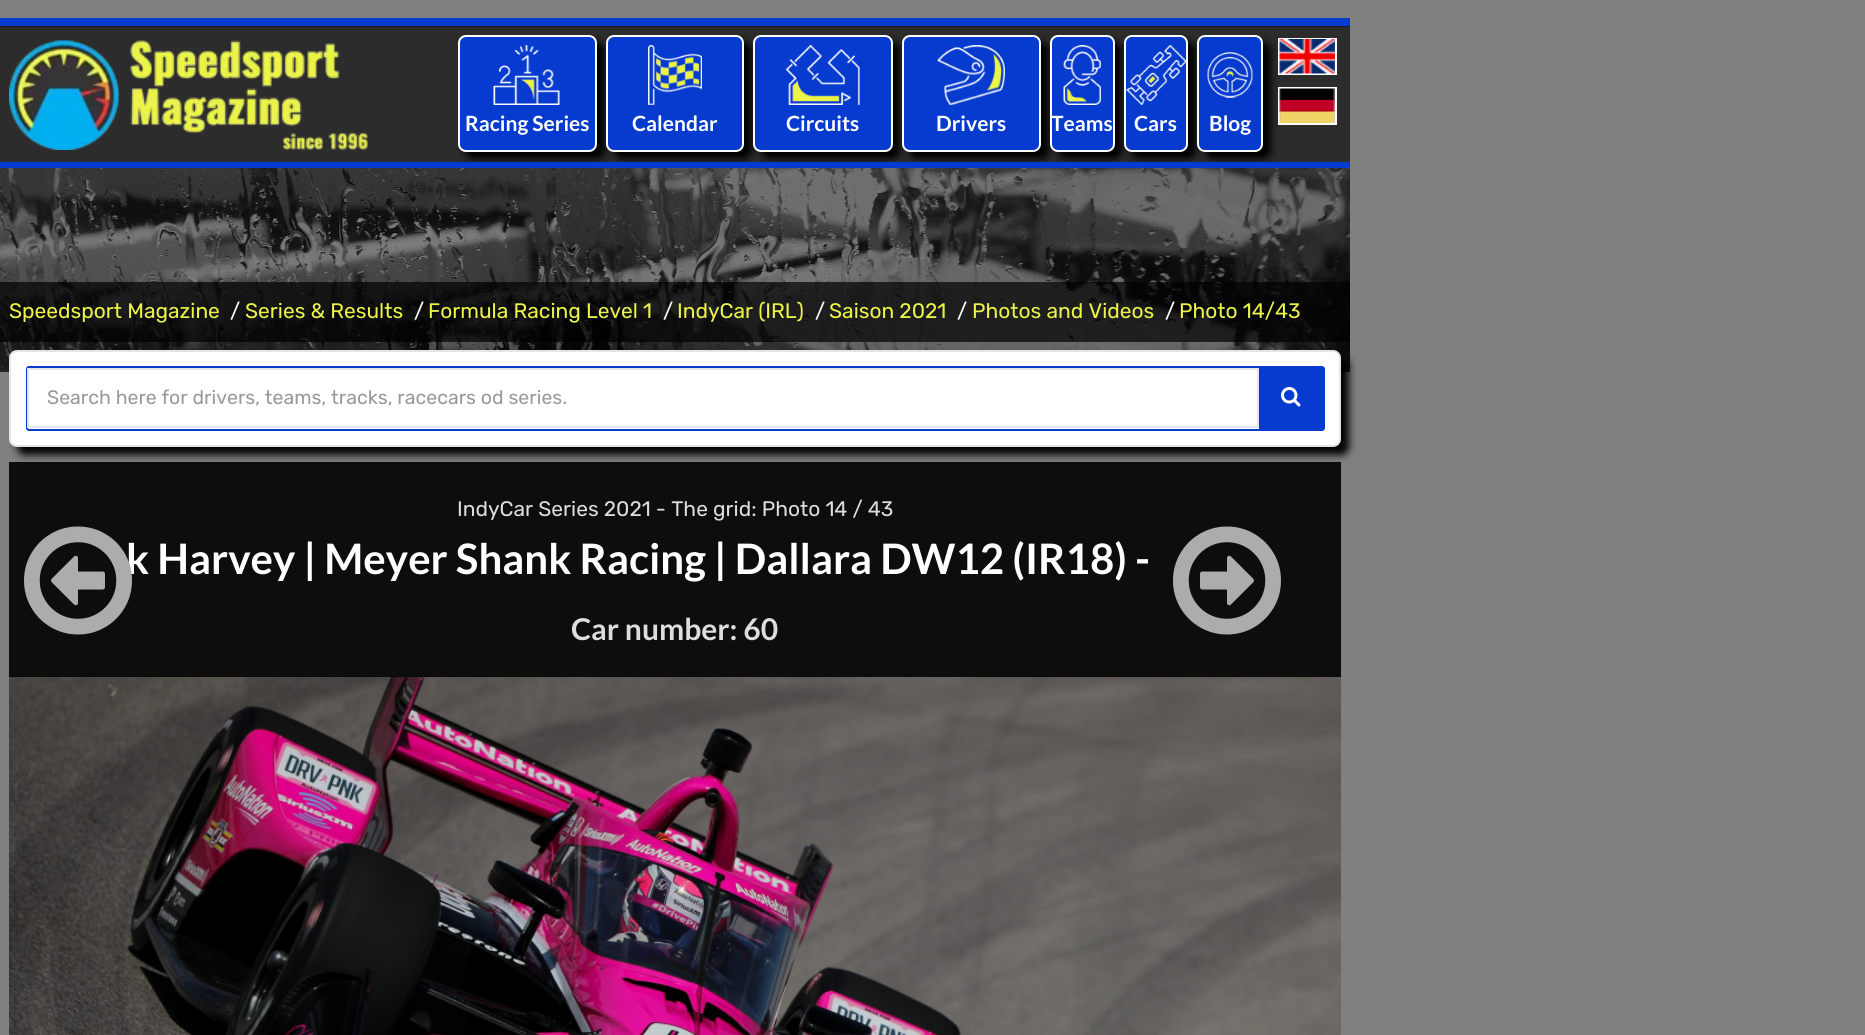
#include <cairo.h>
#include <math.h>
#include <stddef.h>

typedef struct { double x, y, w, h; unsigned color; } box_t;

static void ink(cairo_t *ctx, unsigned color) {
    cairo_set_source_rgb(ctx, (color >> 16) / 255.0, (color >> 8 & 255) / 255.0, (color & 255) / 255.0);
}

static void round_path(cairo_t *ctx, double x, double y, double w, double h, double r) {
    cairo_new_sub_path(ctx);
    cairo_arc(ctx, x + w - r, y + h - r, r, 0, M_PI / 2);
    cairo_arc(ctx, x + r, y + h - r, r, M_PI / 2, M_PI);
    cairo_arc(ctx, x + r, y + r, r, M_PI, 1.5 * M_PI);
    cairo_arc(ctx, x + w - r, y + r, r, 1.5 * M_PI, 2 * M_PI);
    cairo_close_path(ctx);
}

static void blur_box(cairo_t *ctx, double x, double y, double w, double h, double r, double blur, double alpha) {
    cairo_push_group_with_content(ctx, CAIRO_CONTENT_ALPHA);
    cairo_set_operator(ctx, CAIRO_OPERATOR_SOURCE);
    for (int i = 15; i >= -15 && fmin(w, h) + blur * i / 3 > 0; i -= 2) {
        double e = blur * i / 6;
        cairo_set_source_rgba(ctx, 0, 0, 0, alpha * erfc((i - 1) / 8.5) / 2);
        round_path(ctx, x - e, y - e, w + 2 * e, h + 2 * e, fmax(0, fmin(r + e + blur * .6, fmin(w, h) / 2 + e)));
        cairo_fill(ctx);
    }
    cairo_pattern_t *soft = cairo_pop_group(ctx);
    cairo_mask(ctx, soft);
    cairo_pattern_destroy(soft);
}

static void paste(cairo_t *ctx, const char *path, double x, double y, double w, double h) {
    cairo_surface_t *image = cairo_image_surface_create_from_png(path);
    cairo_save(ctx);
    cairo_set_source_surface(ctx, image, x, y);
    cairo_rectangle(ctx, x, y, w, h);
    cairo_fill(ctx);
    cairo_restore(ctx);
    cairo_surface_destroy(image);
}

int main(void) {
    cairo_surface_t *surface = cairo_image_surface_create(CAIRO_FORMAT_RGB24, 1865, 1035);
    cairo_t *ctx = cairo_create(surface);
    cairo_font_options_t *options = cairo_font_options_create();
    cairo_font_options_set_hint_metrics(options, CAIRO_HINT_METRICS_OFF);
    cairo_font_options_set_hint_style(options, CAIRO_HINT_STYLE_NONE);
    cairo_set_font_options(ctx, options);
    cairo_set_miter_limit(ctx, 4);
    ink(ctx, 0x808080);
    cairo_paint(ctx);
    {
        static const box_t items[] = {
            {0, 18, 1350, 8, 0x073BCF},
            {0, 26, 1350, 1, 0x1D1D1D},
            {0, 27, 1350, 135, 0x2C2C2C},
        };
        for (size_t i = 0; i < sizeof items / sizeof *items; i++) {
            ink(ctx, items[i].color);
            cairo_rectangle(ctx, items[i].x, items[i].y, items[i].w, items[i].h);
            cairo_fill(ctx);
        }
    }
    paste(ctx, "media/1.png", 9, 40, 359, 110);
    paste(ctx, "media/11.png", 0, 168, 1350, 204);
    ink(ctx, 0x000000);
    blur_box(ctx, 465, 42, 140, 117, 8, 4, 1);
    ink(ctx, 0x073BCF);
    round_path(ctx, 459, 36, 137, 115, 7);
    cairo_fill_preserve(ctx);
    ink(ctx, 0xFFFFFF);
    cairo_stroke(ctx);
    paste(ctx, "media/2.png", 493, 45, 67, 60);
    cairo_select_font_face(ctx, "Lato", CAIRO_FONT_SLANT_NORMAL, CAIRO_FONT_WEIGHT_BOLD);
    cairo_set_font_size(ctx, 21);
    cairo_move_to(ctx, 465, 131);
    cairo_show_text(ctx, "Racing Series");
    ink(ctx, 0x000000);
    blur_box(ctx, 614, 42, 138, 117, 8, 4, 1);
    ink(ctx, 0x073BCF);
    round_path(ctx, 607, 36, 136, 115, 7);
    cairo_fill_preserve(ctx);
    ink(ctx, 0xFFFFFF);
    cairo_stroke(ctx);
    paste(ctx, "media/3.png", 648, 45, 54, 60);
    cairo_move_to(ctx, 632, 131);
    cairo_show_text(ctx, "Calendar");
    ink(ctx, 0x000000);
    blur_box(ctx, 761, 42, 139, 117, 8, 4, 1);
    ink(ctx, 0x073BCF);
    round_path(ctx, 754, 36, 138, 115, 7);
    cairo_fill_preserve(ctx);
    ink(ctx, 0xFFFFFF);
    cairo_stroke(ctx);
    paste(ctx, "media/4.png", 785, 45, 75, 60);
    cairo_move_to(ctx, 786, 131);
    cairo_show_text(ctx, "Circuits");
    ink(ctx, 0x000000);
    blur_box(ctx, 909, 42, 140, 117, 8, 4, 1);
    ink(ctx, 0x073BCF);
    round_path(ctx, 903, 36, 137, 115, 7);
    cairo_fill_preserve(ctx);
    ink(ctx, 0xFFFFFF);
    cairo_stroke(ctx);
    paste(ctx, "media/5.png", 937, 45, 68, 60);
    cairo_move_to(ctx, 936, 131);
    cairo_show_text(ctx, "Drivers");
    ink(ctx, 0x000000);
    blur_box(ctx, 1058, 42, 64, 117, 8, 4, 1);
    ink(ctx, 0x073BCF);
    round_path(ctx, 1051, 36, 63, 115, 7);
    cairo_fill_preserve(ctx);
    ink(ctx, 0xFFFFFF);
    cairo_stroke(ctx);
    paste(ctx, "media/6.png", 1063, 45, 38, 60);
    cairo_move_to(ctx, 1051, 131);
    cairo_show_text(ctx, "Teams");
    ink(ctx, 0x000000);
    blur_box(ctx, 1131, 42, 65, 117, 8, 4, 1);
    ink(ctx, 0x073BCF);
    round_path(ctx, 1125, 36, 62, 115, 7);
    cairo_fill_preserve(ctx);
    ink(ctx, 0xFFFFFF);
    cairo_stroke(ctx);
    paste(ctx, "media/7.png", 1126, 45, 60, 60);
    cairo_move_to(ctx, 1134, 131);
    cairo_show_text(ctx, "Cars");
    ink(ctx, 0x000000);
    blur_box(ctx, 1205, 42, 66, 117, 8, 4, 1);
    ink(ctx, 0x073BCF);
    round_path(ctx, 1198, 36, 64, 115, 7);
    cairo_fill_preserve(ctx);
    ink(ctx, 0xFFFFFF);
    cairo_stroke(ctx);
    paste(ctx, "media/8.png", 1207, 52, 46, 46);
    cairo_move_to(ctx, 1209, 131);
    cairo_show_text(ctx, "Blog");
    cairo_rectangle(ctx, 1279, 39, 57, 35);
    cairo_stroke(ctx);
    paste(ctx, "media/9.png", 1279, 39, 56, 35);
    cairo_rectangle(ctx, 1279, 88, 57, 36);
    cairo_stroke(ctx);
    paste(ctx, "media/10.png", 1279, 88, 56, 35);
    ink(ctx, 0x073BCF);
    cairo_rectangle(ctx, 0, 162, 1350, 6);
    cairo_fill(ctx);
    cairo_set_source_rgba(ctx, 0, 0, 0, 0.7);
    cairo_rectangle(ctx, 0, 282, 1350, 60);
    cairo_fill(ctx);
    cairo_select_font_face(ctx, "Rubik Light", CAIRO_FONT_SLANT_NORMAL, CAIRO_FONT_WEIGHT_NORMAL);
    ink(ctx, 0xECF447);
    cairo_move_to(ctx, 9, 318);
    cairo_show_text(ctx, "Speedsport Magazine");
    ink(ctx, 0xFFFFFF);
    cairo_move_to(ctx, 230, 318);
    cairo_show_text(ctx, "/");
    ink(ctx, 0xECF447);
    cairo_move_to(ctx, 245, 318);
    cairo_show_text(ctx, "Series & Results");
    ink(ctx, 0xFFFFFF);
    cairo_move_to(ctx, 414, 318);
    cairo_show_text(ctx, "/");
    ink(ctx, 0xECF447);
    cairo_move_to(ctx, 428, 318);
    cairo_show_text(ctx, "Formula Racing Level 1");
    ink(ctx, 0xFFFFFF);
    cairo_move_to(ctx, 663, 318);
    cairo_show_text(ctx, "/");
    ink(ctx, 0xECF447);
    cairo_move_to(ctx, 677, 318);
    cairo_show_text(ctx, "IndyCar (IRL)");
    ink(ctx, 0xFFFFFF);
    cairo_move_to(ctx, 815, 318);
    cairo_show_text(ctx, "/");
    ink(ctx, 0xECF447);
    cairo_move_to(ctx, 829, 318);
    cairo_show_text(ctx, "Saison 2021");
    ink(ctx, 0xFFFFFF);
    cairo_move_to(ctx, 957, 318);
    cairo_show_text(ctx, "/");
    ink(ctx, 0xECF447);
    cairo_move_to(ctx, 972, 318);
    cairo_show_text(ctx, "Photos and Videos");
    ink(ctx, 0xFFFFFF);
    cairo_move_to(ctx, 1165, 318);
    cairo_show_text(ctx, "/");
    ink(ctx, 0xECF447);
    cairo_move_to(ctx, 1179, 318);
    cairo_show_text(ctx, "Photo 14/43");
    ink(ctx, 0x000000);
    blur_box(ctx, 17, 357, 1332, 98, 8, 4, 1);
    ink(ctx, 0xFFFFFF);
    round_path(ctx, 10, 351, 1330, 95, 7);
    cairo_fill_preserve(ctx);
    ink(ctx, 0xE5E5E5);
    cairo_stroke(ctx);
    round_path(ctx, 27, 367, 1297, 63, 2);
    ink(ctx, 0x073BCF);
    cairo_stroke(ctx);
    cairo_rectangle(ctx, 28, 369, 1230, 58);
    ink(ctx, 0xE1E6EB);
    cairo_stroke(ctx);
    cairo_set_font_size(ctx, 19.5);
    ink(ctx, 0x999999);
    cairo_move_to(ctx, 47, 404);
    cairo_show_text(ctx, "Search here for drivers, teams, tracks, racecars od series.");
    ink(ctx, 0x073BCF);
    cairo_rectangle(ctx, 1259, 368, 64, 61);
    cairo_fill(ctx);
    paste(ctx, "media/12.png", 1281, 387, 20, 20);
    paste(ctx, "media/15.png", 9, 676, 1332, 359);
    cairo_set_source_rgba(ctx, 0, 0, 0, 0.9);
    cairo_rectangle(ctx, 9, 462, 1332, 215);
    cairo_fill(ctx);
    cairo_set_font_size(ctx, 21);
    ink(ctx, 0xDDDDDD);
    cairo_move_to(ctx, 457, 516);
    cairo_show_text(ctx, "IndyCar Series 2021 - The grid: Photo 14 / 43");
    cairo_select_font_face(ctx, "Lato", CAIRO_FONT_SLANT_NORMAL, CAIRO_FONT_WEIGHT_BOLD);
    cairo_set_font_size(ctx, 42);
    ink(ctx, 0xFFFFFF);
    cairo_move_to(ctx, 126, 574);
    cairo_show_text(ctx, "k Harvey | Meyer Shank Racing | Dallara DW12 (IR18) -");
    paste(ctx, "media/13.png", 24, 526, 108, 109);
    paste(ctx, "media/14.png", 1173, 526, 108, 109);
    cairo_set_font_size(ctx, 30);
    ink(ctx, 0xDDDDDD);
    cairo_move_to(ctx, 571, 640);
    cairo_show_text(ctx, "Car number: 60");
    cairo_surface_write_to_png(surface, "image.png");
    cairo_font_options_destroy(options);
    cairo_destroy(ctx);
    cairo_surface_destroy(surface);
    return 0;
}
